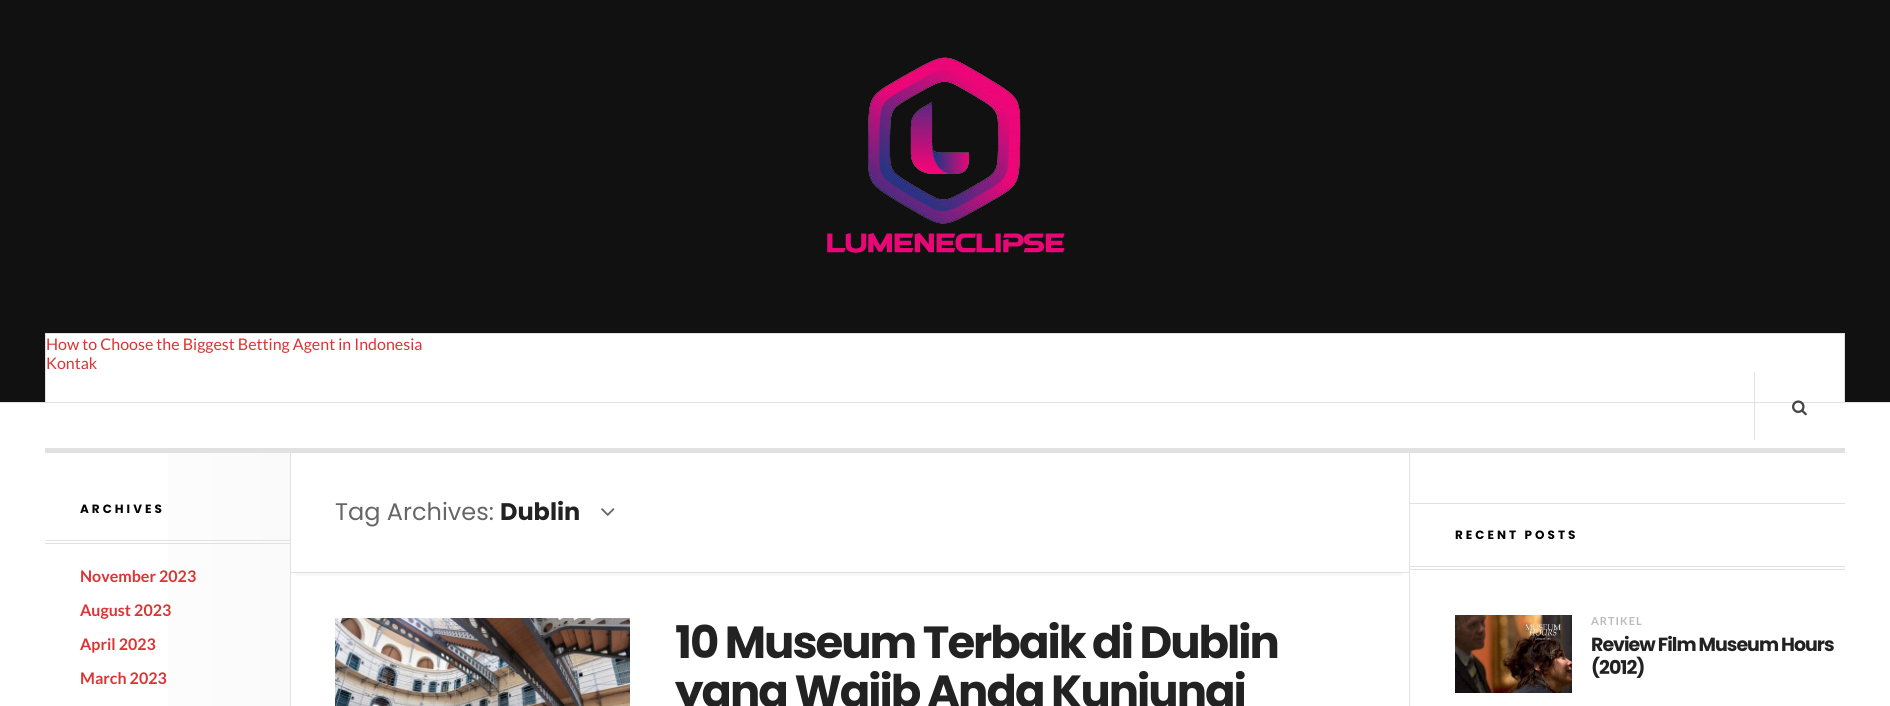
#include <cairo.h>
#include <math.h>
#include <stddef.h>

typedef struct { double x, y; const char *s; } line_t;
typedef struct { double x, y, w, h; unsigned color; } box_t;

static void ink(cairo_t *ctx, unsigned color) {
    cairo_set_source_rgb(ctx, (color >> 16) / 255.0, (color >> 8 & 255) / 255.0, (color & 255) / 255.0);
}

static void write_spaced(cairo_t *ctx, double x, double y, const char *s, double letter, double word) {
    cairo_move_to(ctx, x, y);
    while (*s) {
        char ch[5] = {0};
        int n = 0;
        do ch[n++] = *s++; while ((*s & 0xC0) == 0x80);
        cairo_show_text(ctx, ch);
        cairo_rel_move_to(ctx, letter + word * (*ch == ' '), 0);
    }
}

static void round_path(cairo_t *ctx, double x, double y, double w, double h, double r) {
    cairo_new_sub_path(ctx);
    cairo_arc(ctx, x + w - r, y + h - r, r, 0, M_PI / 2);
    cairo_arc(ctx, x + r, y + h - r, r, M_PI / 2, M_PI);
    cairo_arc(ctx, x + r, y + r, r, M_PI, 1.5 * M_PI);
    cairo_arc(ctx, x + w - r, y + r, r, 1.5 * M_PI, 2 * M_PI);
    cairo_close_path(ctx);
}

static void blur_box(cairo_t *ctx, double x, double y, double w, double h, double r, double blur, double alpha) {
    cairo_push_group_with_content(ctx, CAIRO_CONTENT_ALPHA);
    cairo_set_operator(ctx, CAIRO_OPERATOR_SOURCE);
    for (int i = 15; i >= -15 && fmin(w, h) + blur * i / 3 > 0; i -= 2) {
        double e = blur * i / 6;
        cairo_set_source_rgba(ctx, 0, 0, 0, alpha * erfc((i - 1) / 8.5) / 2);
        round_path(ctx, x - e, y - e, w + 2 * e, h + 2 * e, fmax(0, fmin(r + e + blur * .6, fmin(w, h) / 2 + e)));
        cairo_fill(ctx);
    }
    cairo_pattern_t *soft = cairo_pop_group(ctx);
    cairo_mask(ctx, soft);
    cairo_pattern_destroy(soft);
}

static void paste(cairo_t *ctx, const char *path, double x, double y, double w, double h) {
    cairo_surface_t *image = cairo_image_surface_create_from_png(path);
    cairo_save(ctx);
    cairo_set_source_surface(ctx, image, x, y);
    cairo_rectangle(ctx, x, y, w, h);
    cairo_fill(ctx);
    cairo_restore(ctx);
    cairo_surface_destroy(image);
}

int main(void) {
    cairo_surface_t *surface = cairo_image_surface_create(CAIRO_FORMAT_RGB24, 1890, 706);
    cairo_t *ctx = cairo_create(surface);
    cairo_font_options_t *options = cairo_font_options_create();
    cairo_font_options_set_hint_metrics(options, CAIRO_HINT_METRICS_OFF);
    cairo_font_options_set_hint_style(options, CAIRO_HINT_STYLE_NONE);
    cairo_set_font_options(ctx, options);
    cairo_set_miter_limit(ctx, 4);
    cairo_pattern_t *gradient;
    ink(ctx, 0xFFFFFF);
    cairo_paint(ctx);
    ink(ctx, 0x111111);
    cairo_rectangle(ctx, 0, 0, 1890, 402);
    cairo_fill(ctx);
    ink(ctx, 0xE1E1E1);
    cairo_rectangle(ctx, 0, 402, 1890, 1);
    cairo_fill(ctx);
    paste(ctx, "media/1.png", 827, 57, 238, 196);
    ink(ctx, 0xFFFFFF);
    cairo_rectangle(ctx, 45.5, 333.5, 1799, 69);
    cairo_fill_preserve(ctx);
    ink(ctx, 0xE1E1E1);
    cairo_set_line_width(ctx, 1);
    cairo_stroke(ctx);
    cairo_select_font_face(ctx, "Lato", CAIRO_FONT_SLANT_NORMAL, CAIRO_FONT_WEIGHT_NORMAL);
    cairo_set_font_size(ctx, 16);
    ink(ctx, 0xDD3333);
    cairo_move_to(ctx, 46, 350);
    cairo_show_text(ctx, "How to Choose the Biggest Betting Agent in Indonesia");
    cairo_move_to(ctx, 46, 369);
    cairo_show_text(ctx, "Kontak");
    ink(ctx, 0xE1E1E1);
    cairo_rectangle(ctx, 1754, 372, 1, 68);
    cairo_fill(ctx);
    paste(ctx, "media/2.png", 1792, 400, 15, 16);
    cairo_rectangle(ctx, 45, 448, 1800, 5);
    cairo_fill(ctx);
    cairo_rectangle(ctx, 1409, 453, 1, 253);
    cairo_fill(ctx);
    cairo_save(ctx);
    cairo_rectangle(ctx, 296, 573, 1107, 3);
    cairo_clip(ctx);
    ink(ctx, 0x000000);
    blur_box(ctx, 296, 465, 1107, 108, 0, 3, 0.1);
    cairo_restore(ctx);
    gradient = cairo_pattern_create_linear(45, 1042, 290, 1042);
    cairo_pattern_add_color_stop_rgba(gradient, 0, 1, 1, 1, 1);
    cairo_pattern_add_color_stop_rgba(gradient, 1, 0.98, 0.98, 0.98, 1);
    cairo_set_source(ctx, gradient);
    cairo_pattern_destroy(gradient);
    cairo_rectangle(ctx, 168, 453, 122, 253);
    cairo_fill(ctx);
    ink(ctx, 0xE1E1E1);
    cairo_rectangle(ctx, 45, 540, 245, 1);
    cairo_fill(ctx);
    cairo_rectangle(ctx, 45, 543, 245, 1);
    cairo_fill(ctx);
    cairo_select_font_face(ctx, "Poppins", CAIRO_FONT_SLANT_NORMAL, CAIRO_FONT_WEIGHT_BOLD);
    cairo_set_font_size(ctx, 12);
    ink(ctx, 0x000000);
    write_spaced(ctx, 80, 513, "ARCHIVES", 3, 0);
    cairo_select_font_face(ctx, "Lato", CAIRO_FONT_SLANT_NORMAL, CAIRO_FONT_WEIGHT_BOLD);
    cairo_set_font_size(ctx, 16);
    ink(ctx, 0xDD3333);
    {
        static const line_t items[] = {
            {80, 582, "November 2023"},
            {80, 616, "August 2023"},
            {80, 650, "April 2023"},
            {80, 684, "March 2023"},
        };
        for (size_t i = 0; i < sizeof items / sizeof *items; i++) {
            cairo_move_to(ctx, items[i].x, items[i].y);
            cairo_show_text(ctx, items[i].s);
        }
    }
    ink(ctx, 0xE1E1E1);
    cairo_rectangle(ctx, 290, 572, 1119, 1);
    cairo_fill(ctx);
    cairo_rectangle(ctx, 290, 453, 1, 253);
    cairo_fill(ctx);
    cairo_select_font_face(ctx, "Poppins", CAIRO_FONT_SLANT_NORMAL, CAIRO_FONT_WEIGHT_NORMAL);
    cairo_set_font_size(ctx, 24);
    ink(ctx, 0x666666);
    cairo_move_to(ctx, 335, 520);
    cairo_show_text(ctx, "Tag Archives:");
    cairo_select_font_face(ctx, "Poppins", CAIRO_FONT_SLANT_NORMAL, CAIRO_FONT_WEIGHT_BOLD);
    ink(ctx, 0x222222);
    cairo_move_to(ctx, 500, 520);
    cairo_show_text(ctx, "Dublin");
    paste(ctx, "media/3.png", 601, 508, 14, 8);
    paste(ctx, "media/4.png", 335, 618, 295, 88);
    cairo_set_font_size(ctx, 45);
    write_spaced(ctx, 675, 658, "10 Museum Terbaik di Dublin", -2, 0);
    write_spaced(ctx, 675, 707, "yang Wajib Anda Kunjungi", -2, 0);
    {
        static const box_t items[] = {
            {1410, 503, 435, 1, 0xE1E1E1},
            {1410, 566, 435, 1, 0xE1E1E1},
            {1410, 569, 435, 1, 0xE1E1E1},
        };
        for (size_t i = 0; i < sizeof items / sizeof *items; i++) {
            ink(ctx, items[i].color);
            cairo_rectangle(ctx, items[i].x, items[i].y, items[i].w, items[i].h);
            cairo_fill(ctx);
        }
    }
    cairo_set_font_size(ctx, 12);
    ink(ctx, 0x000000);
    write_spaced(ctx, 1455, 539, "RECENT POSTS", 3, 0);
    paste(ctx, "media/5.png", 1455, 615, 117, 78);
    cairo_select_font_face(ctx, "Lato", CAIRO_FONT_SLANT_NORMAL, CAIRO_FONT_WEIGHT_BOLD);
    cairo_set_font_size(ctx, 11);
    ink(ctx, 0xBBBBBB);
    write_spaced(ctx, 1591, 625, "ARTIKEL", 1, 0);
    cairo_select_font_face(ctx, "Poppins", CAIRO_FONT_SLANT_NORMAL, CAIRO_FONT_WEIGHT_BOLD);
    cairo_set_font_size(ctx, 19);
    ink(ctx, 0x222222);
    write_spaced(ctx, 1591, 651, "Review Film Museum Hours", -1, 0);
    write_spaced(ctx, 1591, 674, "(2012)", -1, 0);
    cairo_surface_write_to_png(surface, "image.png");
    cairo_font_options_destroy(options);
    cairo_destroy(ctx);
    cairo_surface_destroy(surface);
    return 0;
}
